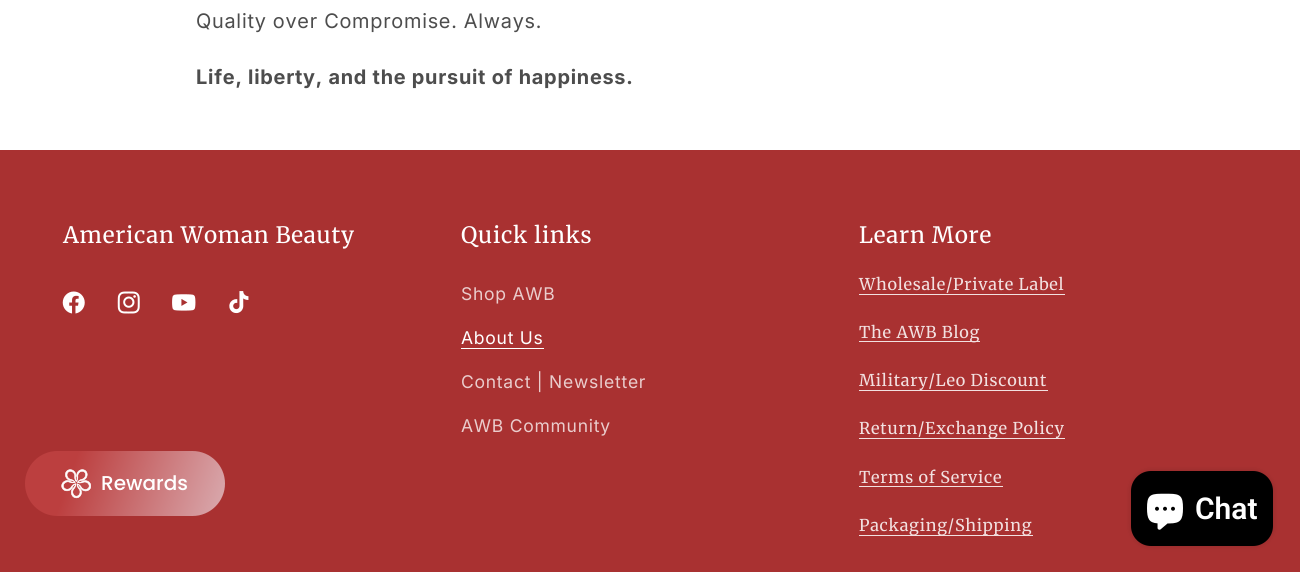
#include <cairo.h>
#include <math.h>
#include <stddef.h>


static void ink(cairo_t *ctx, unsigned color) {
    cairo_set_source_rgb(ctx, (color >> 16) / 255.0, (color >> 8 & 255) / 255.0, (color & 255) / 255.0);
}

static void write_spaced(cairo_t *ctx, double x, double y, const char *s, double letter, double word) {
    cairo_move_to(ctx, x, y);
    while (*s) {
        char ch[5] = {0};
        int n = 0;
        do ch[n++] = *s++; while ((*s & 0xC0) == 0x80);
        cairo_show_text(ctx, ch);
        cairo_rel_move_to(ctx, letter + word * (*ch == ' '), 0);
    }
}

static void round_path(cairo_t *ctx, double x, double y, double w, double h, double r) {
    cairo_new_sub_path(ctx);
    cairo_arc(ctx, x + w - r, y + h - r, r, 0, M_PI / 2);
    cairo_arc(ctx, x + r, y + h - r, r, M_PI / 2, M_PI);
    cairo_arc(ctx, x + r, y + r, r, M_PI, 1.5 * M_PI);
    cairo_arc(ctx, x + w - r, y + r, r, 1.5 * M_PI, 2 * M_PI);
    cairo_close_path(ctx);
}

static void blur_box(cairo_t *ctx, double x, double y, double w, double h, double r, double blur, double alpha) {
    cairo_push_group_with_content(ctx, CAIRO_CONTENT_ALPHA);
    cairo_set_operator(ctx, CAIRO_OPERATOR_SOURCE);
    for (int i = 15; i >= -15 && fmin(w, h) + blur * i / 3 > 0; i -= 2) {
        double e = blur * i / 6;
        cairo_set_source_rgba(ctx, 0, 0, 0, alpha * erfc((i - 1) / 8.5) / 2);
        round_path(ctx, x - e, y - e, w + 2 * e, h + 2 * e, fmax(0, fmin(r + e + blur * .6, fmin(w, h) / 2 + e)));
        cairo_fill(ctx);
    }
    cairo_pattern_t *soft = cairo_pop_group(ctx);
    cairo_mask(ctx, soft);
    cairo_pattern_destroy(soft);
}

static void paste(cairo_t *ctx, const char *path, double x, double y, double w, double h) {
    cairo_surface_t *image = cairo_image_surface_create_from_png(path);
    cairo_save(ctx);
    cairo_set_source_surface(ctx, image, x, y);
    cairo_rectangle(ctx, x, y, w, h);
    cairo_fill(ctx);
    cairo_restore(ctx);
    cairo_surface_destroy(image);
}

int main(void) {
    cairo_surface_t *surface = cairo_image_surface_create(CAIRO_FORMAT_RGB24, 1300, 572);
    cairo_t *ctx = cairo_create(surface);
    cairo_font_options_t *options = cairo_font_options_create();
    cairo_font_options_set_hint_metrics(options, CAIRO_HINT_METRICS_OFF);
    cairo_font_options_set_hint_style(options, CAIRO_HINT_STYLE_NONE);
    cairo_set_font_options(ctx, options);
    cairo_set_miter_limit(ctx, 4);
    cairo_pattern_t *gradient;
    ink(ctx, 0xFFFFFF);
    cairo_paint(ctx);
    cairo_select_font_face(ctx, "Inter", CAIRO_FONT_SLANT_NORMAL, CAIRO_FONT_WEIGHT_NORMAL);
    cairo_set_font_size(ctx, 20);
    ink(ctx, 0x4D4D4D);
    write_spaced(ctx, 196, 28, "Quality over Compromise. Always.", 0.75, 0);
    cairo_select_font_face(ctx, "Inter", CAIRO_FONT_SLANT_NORMAL, CAIRO_FONT_WEIGHT_BOLD);
    write_spaced(ctx, 196, 84, "Life, liberty, and the pursuit of happiness.", 0.75, 0);
    ink(ctx, 0xA93131);
    cairo_rectangle(ctx, 0, 150, 1300, 422);
    cairo_fill(ctx);
    cairo_select_font_face(ctx, "Merriweather", CAIRO_FONT_SLANT_NORMAL, CAIRO_FONT_WEIGHT_NORMAL);
    cairo_set_font_size(ctx, 22.5);
    ink(ctx, 0xFFFFFF);
    write_spaced(ctx, 63, 243, "American Woman Beauty", 0.75, 0);
    paste(ctx, "media/1.png", 62, 291, 23, 23);
    paste(ctx, "media/2.png", 117, 291, 23, 23);
    paste(ctx, "media/3.png", 172, 294, 24, 17);
    paste(ctx, "media/4.png", 229, 291, 20, 23);
    write_spaced(ctx, 461, 243, "Quick links", 0.75, 0);
    cairo_select_font_face(ctx, "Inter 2", CAIRO_FONT_SLANT_NORMAL, CAIRO_FONT_WEIGHT_NORMAL);
    cairo_set_font_size(ctx, 17.5);
    ink(ctx, 0xEACCCC);
    write_spaced(ctx, 461, 300, "Shop AWB", 0.75, 0);
    ink(ctx, 0xFFFFFF);
    write_spaced(ctx, 461, 344, "About Us", 0.75, 0);
    cairo_rectangle(ctx, 461, 348, 83, 1);
    cairo_fill(ctx);
    ink(ctx, 0xEACCCC);
    write_spaced(ctx, 461, 388, "Contact | Newsletter", 0.75, 0);
    write_spaced(ctx, 461, 432, "AWB Community", 0.75, 0);
    cairo_select_font_face(ctx, "Merriweather", CAIRO_FONT_SLANT_NORMAL, CAIRO_FONT_WEIGHT_NORMAL);
    cairo_set_font_size(ctx, 22.5);
    ink(ctx, 0xFFFFFF);
    write_spaced(ctx, 859, 243, "Learn More", 0.75, 0);
    cairo_set_font_size(ctx, 16.25);
    ink(ctx, 0xF2E0E0);
    write_spaced(ctx, 859, 290, "Wholesale/Private Label", 0.75, 0);
    cairo_rectangle(ctx, 859, 294, 206, 1);
    cairo_fill(ctx);
    cairo_rectangle(ctx, 859, 341, 121, 1);
    cairo_fill(ctx);
    write_spaced(ctx, 859, 338, "The AWB Blog", 0.75, 0);
    cairo_rectangle(ctx, 859, 390, 189, 1);
    cairo_fill(ctx);
    write_spaced(ctx, 859, 386, "Military/Leo Discount", 0.75, 0);
    cairo_rectangle(ctx, 859, 438, 206, 1);
    cairo_fill(ctx);
    write_spaced(ctx, 859, 434, "Return/Exchange Policy", 0.75, 0);
    write_spaced(ctx, 859, 483, "Terms of Service", 0.75, 0);
    cairo_rectangle(ctx, 859, 486, 144, 1);
    cairo_fill(ctx);
    cairo_rectangle(ctx, 859, 535, 174, 1);
    cairo_fill(ctx);
    write_spaced(ctx, 859, 531, "Packaging/Shipping", 0.75, 0);
    gradient = cairo_pattern_create_linear(26, 449, 304, 547);
    cairo_pattern_add_color_stop_rgba(gradient, 0.17, 0.737, 0.247, 0.247, 1);
    cairo_pattern_add_color_stop_rgba(gradient, 1, 0.914, 0.894, 0.922, 1);
    cairo_set_source(ctx, gradient);
    cairo_pattern_destroy(gradient);
    round_path(ctx, 25, 451, 200, 65, 32.5);
    cairo_fill(ctx);
    paste(ctx, "media/5.png", 61, 469, 30, 30);
    cairo_select_font_face(ctx, "Poppins Medium", CAIRO_FONT_SLANT_NORMAL, CAIRO_FONT_WEIGHT_NORMAL);
    cairo_set_font_size(ctx, 20);
    ink(ctx, 0xFFFFFF);
    cairo_move_to(ctx, 101, 490);
    cairo_show_text(ctx, "Rewards");
    ink(ctx, 0x000000);
    blur_box(ctx, 1131, 471, 142, 75, 20, 3, 0.15);
    ink(ctx, 0x000000);
    round_path(ctx, 1131, 471, 142, 75, 20);
    cairo_fill(ctx);
    paste(ctx, "media/6.png", 1147, 493, 36, 37);
    cairo_select_font_face(ctx, "Roboto SemiBold", CAIRO_FONT_SLANT_NORMAL, CAIRO_FONT_WEIGHT_NORMAL);
    cairo_set_font_size(ctx, 30);
    ink(ctx, 0xFFFFFF);
    cairo_move_to(ctx, 1195, 519);
    cairo_show_text(ctx, "Chat");
    cairo_surface_write_to_png(surface, "image.png");
    cairo_font_options_destroy(options);
    cairo_destroy(ctx);
    cairo_surface_destroy(surface);
    return 0;
}
